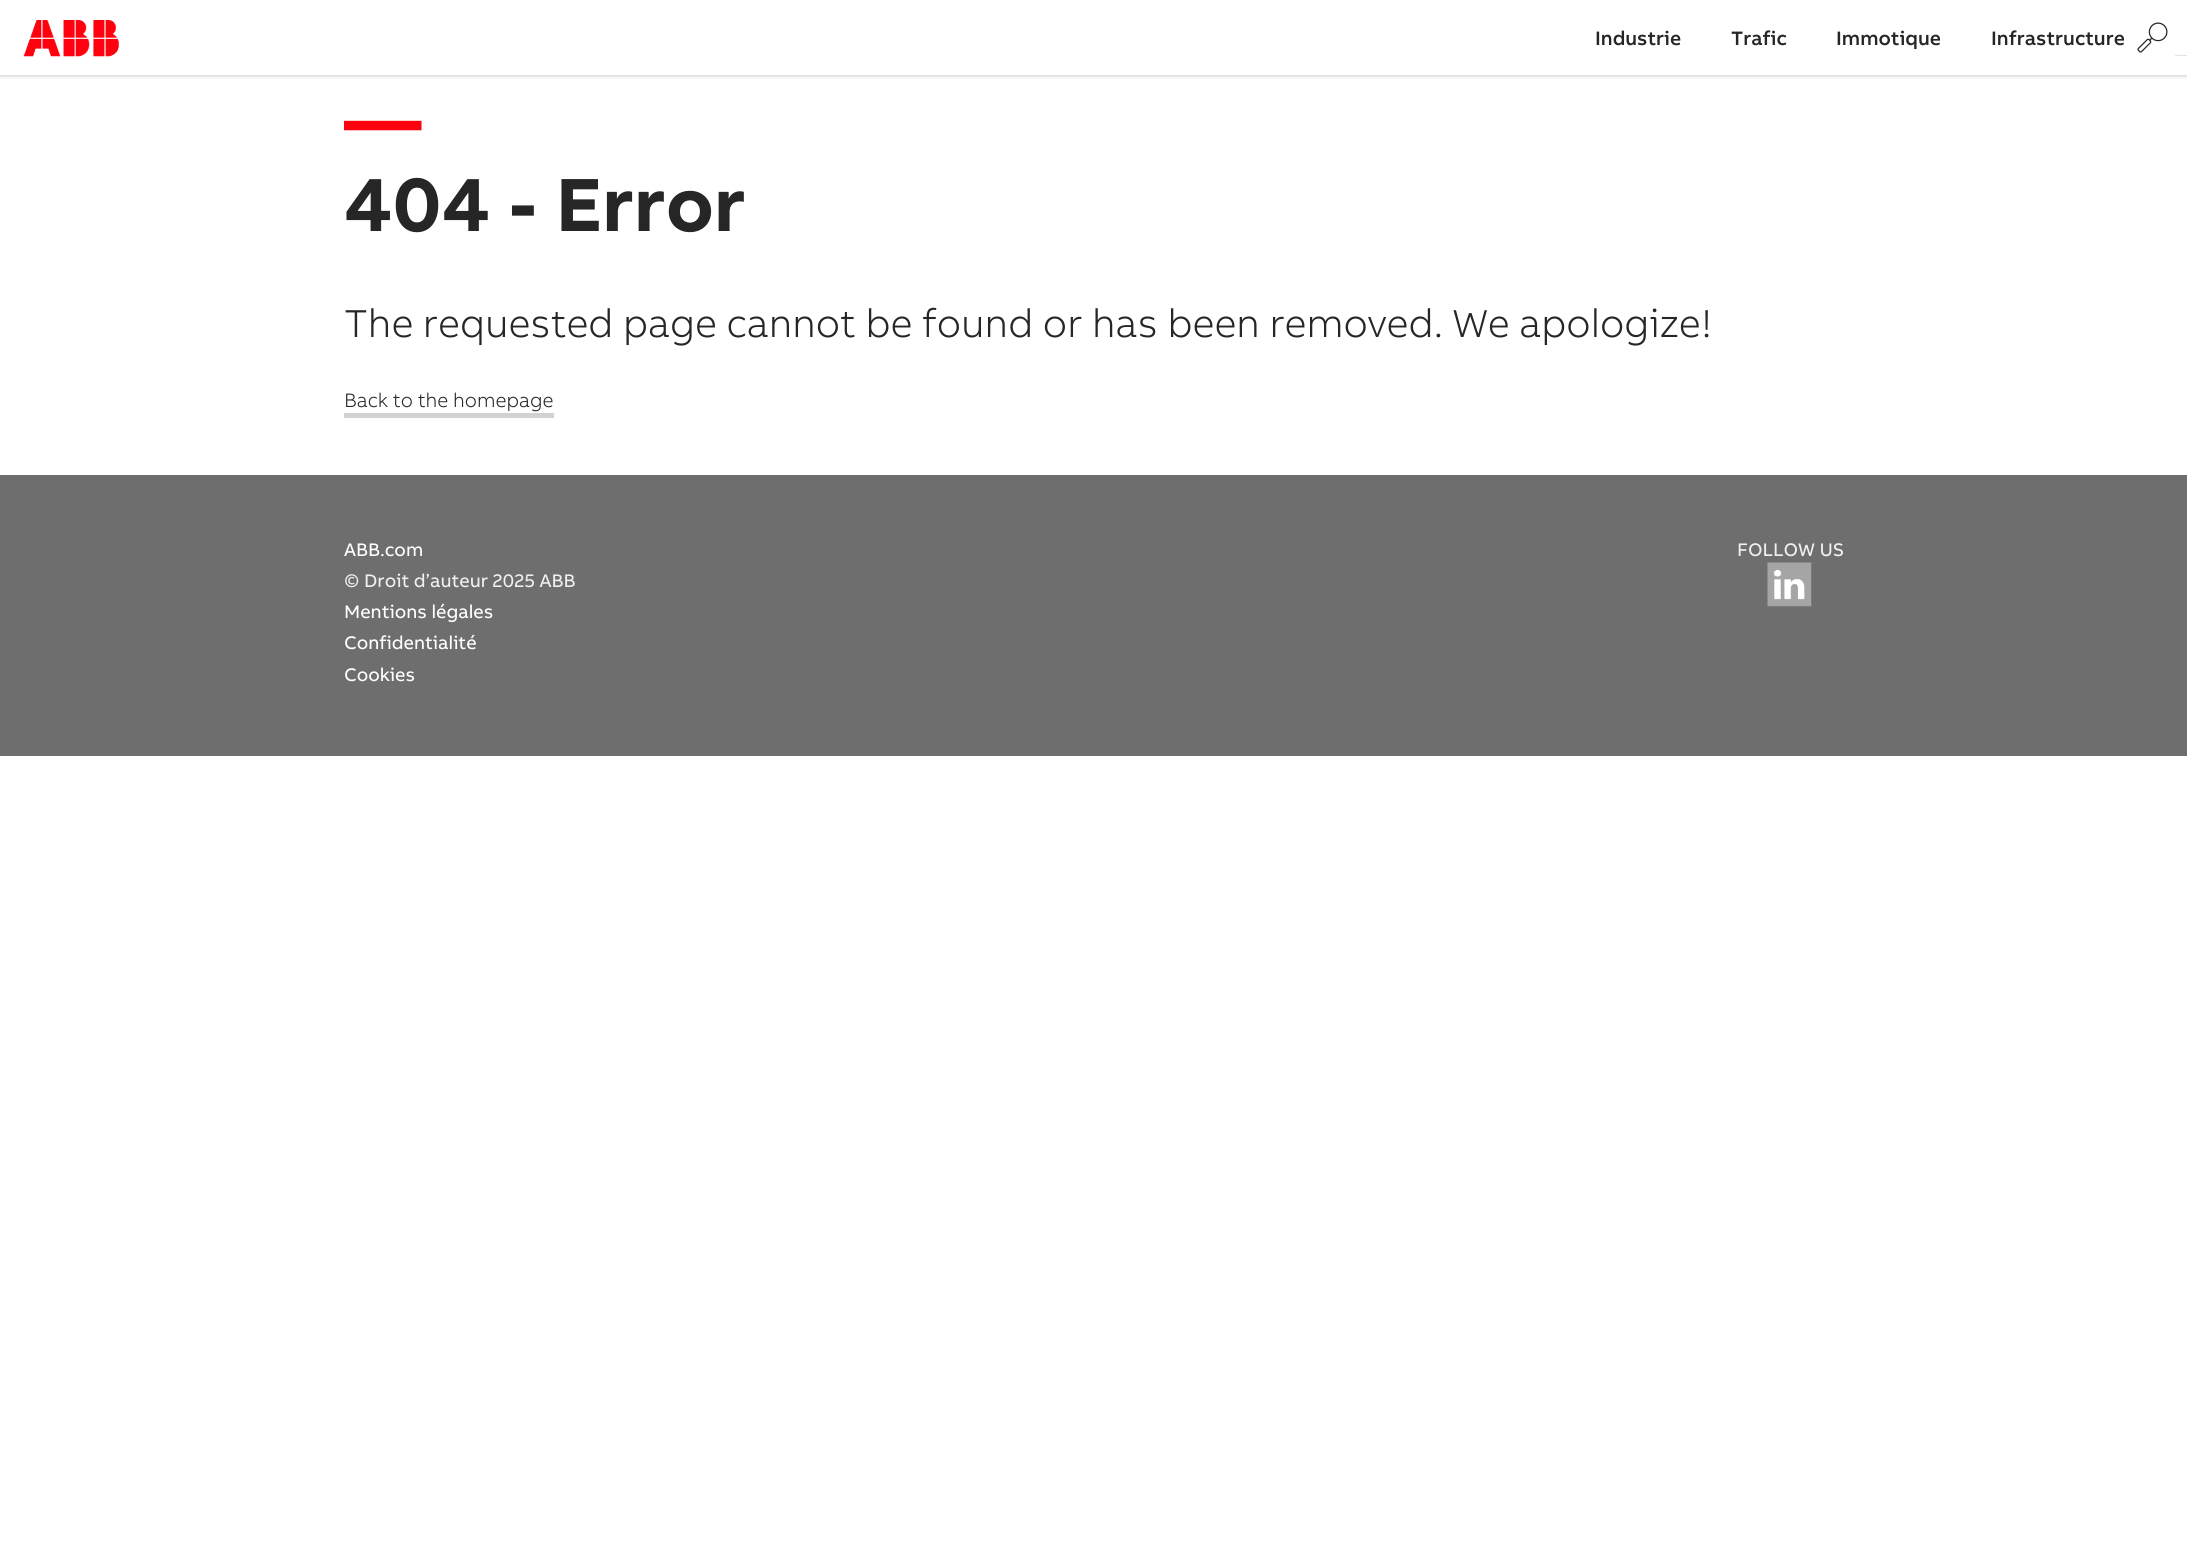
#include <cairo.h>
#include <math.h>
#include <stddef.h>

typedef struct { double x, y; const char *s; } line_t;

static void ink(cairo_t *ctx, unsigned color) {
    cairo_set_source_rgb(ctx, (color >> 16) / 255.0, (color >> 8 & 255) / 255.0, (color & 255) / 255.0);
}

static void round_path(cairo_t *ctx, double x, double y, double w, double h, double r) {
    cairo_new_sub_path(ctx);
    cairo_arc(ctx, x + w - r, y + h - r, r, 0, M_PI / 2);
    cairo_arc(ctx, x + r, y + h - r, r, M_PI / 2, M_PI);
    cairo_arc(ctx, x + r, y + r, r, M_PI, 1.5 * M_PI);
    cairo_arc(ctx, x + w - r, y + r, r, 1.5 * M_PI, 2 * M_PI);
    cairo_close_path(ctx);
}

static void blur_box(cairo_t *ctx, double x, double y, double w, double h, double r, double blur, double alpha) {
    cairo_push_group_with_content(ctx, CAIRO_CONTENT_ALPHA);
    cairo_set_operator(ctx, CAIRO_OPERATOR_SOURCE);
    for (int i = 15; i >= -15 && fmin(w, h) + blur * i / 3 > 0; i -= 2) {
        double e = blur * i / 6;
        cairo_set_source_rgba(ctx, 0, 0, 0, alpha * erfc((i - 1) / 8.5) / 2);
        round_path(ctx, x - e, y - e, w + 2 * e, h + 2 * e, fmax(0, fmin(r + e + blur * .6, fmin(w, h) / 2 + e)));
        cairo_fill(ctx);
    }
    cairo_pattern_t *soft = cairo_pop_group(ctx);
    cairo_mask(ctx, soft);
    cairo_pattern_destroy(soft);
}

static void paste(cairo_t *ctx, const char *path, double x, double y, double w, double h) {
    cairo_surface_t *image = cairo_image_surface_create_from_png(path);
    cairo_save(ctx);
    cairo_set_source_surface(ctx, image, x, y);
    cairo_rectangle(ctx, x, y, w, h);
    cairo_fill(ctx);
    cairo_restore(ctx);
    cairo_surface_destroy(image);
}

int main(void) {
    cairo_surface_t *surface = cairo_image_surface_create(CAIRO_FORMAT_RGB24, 2187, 1541);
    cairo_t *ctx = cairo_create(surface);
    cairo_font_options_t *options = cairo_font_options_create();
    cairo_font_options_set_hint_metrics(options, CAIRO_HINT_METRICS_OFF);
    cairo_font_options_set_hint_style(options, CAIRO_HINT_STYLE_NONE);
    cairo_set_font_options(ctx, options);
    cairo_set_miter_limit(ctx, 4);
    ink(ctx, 0xFFFFFF);
    cairo_paint(ctx);
    cairo_save(ctx);
    cairo_rectangle(ctx, 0, 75, 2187, 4);
    cairo_clip(ctx);
    ink(ctx, 0x000000);
    blur_box(ctx, 0, 1, 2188, 75, 0, 2, 0.2);
    cairo_restore(ctx);
    paste(ctx, "media/1.png", 23, 20, 96, 37);
    cairo_select_font_face(ctx, "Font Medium", CAIRO_FONT_SLANT_NORMAL, CAIRO_FONT_WEIGHT_NORMAL);
    cairo_set_font_size(ctx, 20);
    ink(ctx, 0x262626);
    {
        static const line_t items[] = {
            {1595, 45, "Industrie"},
            {1731, 45, "Trafic"},
            {1836, 45, "Immotique"},
            {1991, 45, "Infrastructure"},
        };
        for (size_t i = 0; i < sizeof items / sizeof *items; i++) {
            cairo_move_to(ctx, items[i].x, items[i].y);
            cairo_show_text(ctx, items[i].s);
        }
    }
    paste(ctx, "media/2.png", 2137, 22, 31, 31);
    ink(ctx, 0xE4E4E4);
    cairo_rectangle(ctx, 2175, 55, 12, 1);
    cairo_fill(ctx);
    cairo_select_font_face(ctx, "Font", CAIRO_FONT_SLANT_NORMAL, CAIRO_FONT_WEIGHT_BOLD);
    cairo_set_font_size(ctx, 77.5);
    ink(ctx, 0xFF000F);
    cairo_move_to(ctx, 344, 146);
    cairo_show_text(ctx, "—");
    ink(ctx, 0x262626);
    cairo_move_to(ctx, 344, 231);
    cairo_show_text(ctx, "404 - Error");
    cairo_select_font_face(ctx, "Font Light", CAIRO_FONT_SLANT_NORMAL, CAIRO_FONT_WEIGHT_NORMAL);
    cairo_set_font_size(ctx, 40);
    cairo_move_to(ctx, 344, 337);
    cairo_show_text(ctx, "The requested page cannot be found or has been removed. We apologize!");
    cairo_set_font_size(ctx, 20);
    cairo_move_to(ctx, 344, 407);
    cairo_show_text(ctx, "Back to the homepage");
    ink(ctx, 0xD2D2D2);
    cairo_rectangle(ctx, 344, 413, 210, 5);
    cairo_fill(ctx);
    ink(ctx, 0x6E6E6E);
    cairo_rectangle(ctx, 0, 475, 2187, 281);
    cairo_fill(ctx);
    cairo_select_font_face(ctx, "Font", CAIRO_FONT_SLANT_NORMAL, CAIRO_FONT_WEIGHT_NORMAL);
    cairo_set_font_size(ctx, 18.75);
    ink(ctx, 0xFFFFFF);
    cairo_move_to(ctx, 344, 556);
    cairo_show_text(ctx, "ABB.com");
    ink(ctx, 0xF0F0F0);
    cairo_move_to(ctx, 344, 587);
    cairo_show_text(ctx, "© Droit d’auteur 2025 ABB");
    ink(ctx, 0xFFFFFF);
    {
        static const line_t items[] = {
            {344, 618, "Mentions légales"},
            {344, 649, "Confidentialité"},
            {344, 681, "Cookies"},
        };
        for (size_t i = 0; i < sizeof items / sizeof *items; i++) {
            cairo_move_to(ctx, items[i].x, items[i].y);
            cairo_show_text(ctx, items[i].s);
        }
    }
    ink(ctx, 0xF0F0F0);
    cairo_move_to(ctx, 1737, 556);
    cairo_show_text(ctx, "FOLLOW US");
    paste(ctx, "media/3.png", 1767, 562, 45, 45);
    cairo_surface_write_to_png(surface, "image.png");
    cairo_font_options_destroy(options);
    cairo_destroy(ctx);
    cairo_surface_destroy(surface);
    return 0;
}
